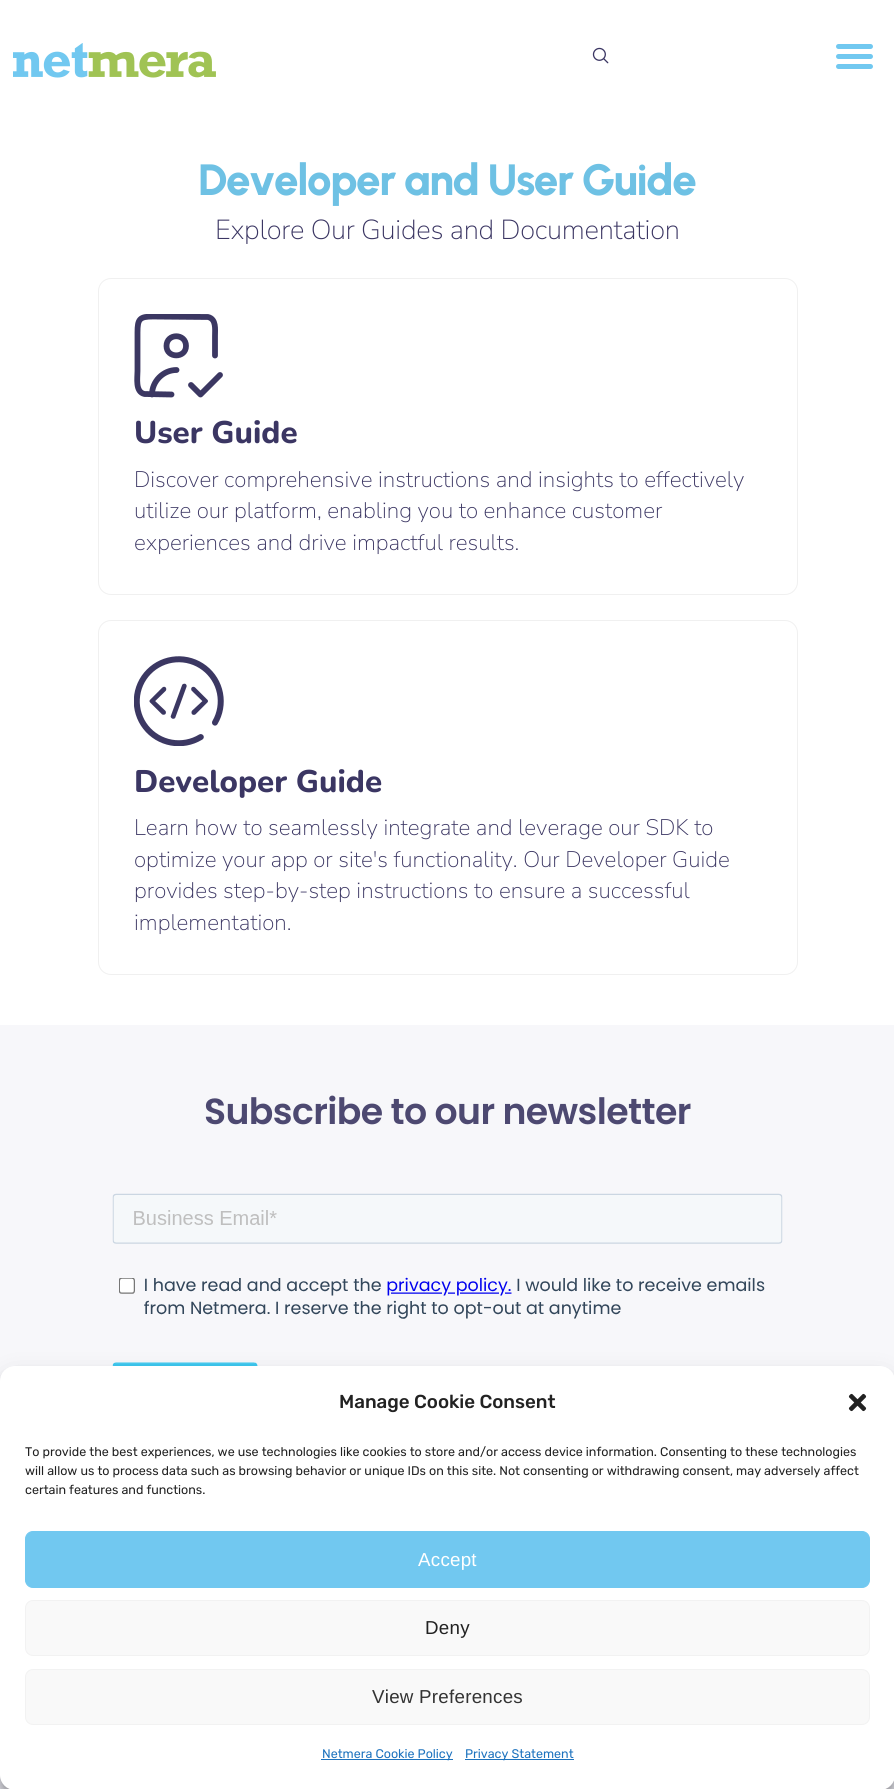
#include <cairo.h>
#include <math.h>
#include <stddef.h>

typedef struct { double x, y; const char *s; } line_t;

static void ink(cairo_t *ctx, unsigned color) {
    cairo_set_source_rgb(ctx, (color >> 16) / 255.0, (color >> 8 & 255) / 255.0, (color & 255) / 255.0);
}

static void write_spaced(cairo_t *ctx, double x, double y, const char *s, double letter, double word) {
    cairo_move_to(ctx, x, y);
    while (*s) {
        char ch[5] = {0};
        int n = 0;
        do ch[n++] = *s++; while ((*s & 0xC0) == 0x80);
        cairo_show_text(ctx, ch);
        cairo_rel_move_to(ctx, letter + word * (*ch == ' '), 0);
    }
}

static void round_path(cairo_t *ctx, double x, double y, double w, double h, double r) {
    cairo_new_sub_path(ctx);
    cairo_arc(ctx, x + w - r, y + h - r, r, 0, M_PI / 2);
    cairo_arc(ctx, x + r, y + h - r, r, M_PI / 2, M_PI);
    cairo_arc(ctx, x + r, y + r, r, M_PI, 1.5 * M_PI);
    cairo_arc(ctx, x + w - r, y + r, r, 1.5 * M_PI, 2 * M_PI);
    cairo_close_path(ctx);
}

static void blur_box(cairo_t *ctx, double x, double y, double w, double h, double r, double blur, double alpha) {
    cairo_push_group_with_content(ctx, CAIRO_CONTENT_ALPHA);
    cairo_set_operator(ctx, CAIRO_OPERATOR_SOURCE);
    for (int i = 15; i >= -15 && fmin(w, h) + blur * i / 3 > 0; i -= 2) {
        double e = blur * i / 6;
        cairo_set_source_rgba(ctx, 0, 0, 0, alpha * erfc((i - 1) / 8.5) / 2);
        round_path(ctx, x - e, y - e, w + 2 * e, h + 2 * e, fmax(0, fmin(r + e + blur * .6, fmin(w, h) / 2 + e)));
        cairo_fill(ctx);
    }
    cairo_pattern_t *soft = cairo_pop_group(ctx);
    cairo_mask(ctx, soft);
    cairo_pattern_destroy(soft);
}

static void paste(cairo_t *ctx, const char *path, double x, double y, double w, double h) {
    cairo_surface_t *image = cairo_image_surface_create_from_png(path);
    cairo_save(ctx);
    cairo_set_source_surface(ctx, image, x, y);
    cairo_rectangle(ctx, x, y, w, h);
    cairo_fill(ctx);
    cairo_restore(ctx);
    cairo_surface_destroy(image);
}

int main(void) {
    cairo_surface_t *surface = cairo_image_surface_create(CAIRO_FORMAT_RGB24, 894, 1789);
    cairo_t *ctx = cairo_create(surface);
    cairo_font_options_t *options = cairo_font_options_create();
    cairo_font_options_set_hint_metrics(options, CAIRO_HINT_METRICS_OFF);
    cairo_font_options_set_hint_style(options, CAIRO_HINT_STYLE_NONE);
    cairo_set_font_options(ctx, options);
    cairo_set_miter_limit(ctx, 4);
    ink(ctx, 0xFFFFFF);
    cairo_paint(ctx);
    paste(ctx, "media/1.png", 13, 43, 203, 35);
    paste(ctx, "media/2.png", 592, 47, 17, 17);
    ink(ctx, 0x71C8F0);
    round_path(ctx, 836, 44, 37, 5, 2.5);
    cairo_fill(ctx);
    round_path(ctx, 836, 54, 37, 5, 2.5);
    cairo_fill(ctx);
    round_path(ctx, 836, 64, 37, 5, 2.5);
    cairo_fill(ctx);
    cairo_select_font_face(ctx, "Urbanist ExtraBold", CAIRO_FONT_SLANT_NORMAL, CAIRO_FONT_WEIGHT_NORMAL);
    cairo_set_font_size(ctx, 43.75);
    ink(ctx, 0x6EC1E4);
    write_spaced(ctx, 198, 195, "Developer and User Guide", -1.4, 0);
    cairo_select_font_face(ctx, "Nunito Sans ExtraLight", CAIRO_FONT_SLANT_NORMAL, CAIRO_FONT_WEIGHT_NORMAL);
    cairo_set_font_size(ctx, 27.5);
    ink(ctx, 0x3B3663);
    write_spaced(ctx, 215, 239, "Explore Our Guides and Documentation", -0.25, 0);
    round_path(ctx, 98.5, 278.5, 699, 316, 12.5);
    ink(ctx, 0xF0F0F0);
    cairo_set_line_width(ctx, 1);
    cairo_stroke(ctx);
    cairo_save(ctx);
    cairo_rectangle(ctx, 134, 314, 90, 84);
    cairo_clip(ctx);
    cairo_new_path(ctx);
    cairo_move_to(ctx, 191, 385);
    cairo_line_to(ctx, 200.5, 394.5);
    cairo_line_to(ctx, 220, 375);
    cairo_move_to(ctx, 171.5, 394.5);
    cairo_line_to(ctx, 144.5, 394);
    cairo_curve_to(ctx, 135, 392, 137.5, 378, 137.5, 371);
    cairo_line_to(ctx, 137.5, 332.5);
    cairo_curve_to(ctx, 137.5, 319, 139.5, 316.5, 153, 316.5);
    cairo_line_to(ctx, 208, 317);
    cairo_curve_to(ctx, 216.5, 319, 215, 329.5, 215, 336);
    cairo_line_to(ctx, 215, 355.5);
    cairo_move_to(ctx, 152, 394.5);
    cairo_curve_to(ctx, 152, 381.5, 163, 370, 176.5, 370);
    cairo_move_to(ctx, 186, 346);
    cairo_curve_to(ctx, 186, 358.5, 166.5, 358.5, 166.5, 346);
    cairo_curve_to(ctx, 166.5, 333, 186, 333, 186, 346);
    cairo_close_path(ctx);
    ink(ctx, 0x3B3762);
    cairo_set_line_width(ctx, 5.8);
    cairo_set_line_cap(ctx, CAIRO_LINE_CAP_ROUND);
    cairo_set_line_join(ctx, CAIRO_LINE_JOIN_ROUND);
    cairo_stroke(ctx);
    cairo_restore(ctx);
    cairo_select_font_face(ctx, "Nunito ExtraBold", CAIRO_FONT_SLANT_NORMAL, CAIRO_FONT_WEIGHT_NORMAL);
    cairo_set_font_size(ctx, 31.25);
    ink(ctx, 0x3B3663);
    cairo_move_to(ctx, 134, 443);
    cairo_show_text(ctx, "User Guide");
    cairo_select_font_face(ctx, "Nunito Sans ExtraLight", CAIRO_FONT_SLANT_NORMAL, CAIRO_FONT_WEIGHT_NORMAL);
    cairo_set_font_size(ctx, 22.5);
    {
        static const line_t items[] = {
            {134, 487, "Discover comprehensive instructions and insights to effectively"},
            {134, 518, "utilize our platform, enabling you to enhance customer"},
            {134, 550, "experiences and drive impactful results."},
        };
        for (size_t i = 0; i < sizeof items / sizeof *items; i++) {
            cairo_move_to(ctx, items[i].x, items[i].y);
            cairo_show_text(ctx, items[i].s);
        }
    }
    round_path(ctx, 98.5, 620.5, 699, 354, 12.5);
    ink(ctx, 0xF0F0F0);
    cairo_stroke(ctx);
    paste(ctx, "media/3.png", 134, 656, 90, 90);
    cairo_select_font_face(ctx, "Nunito ExtraBold", CAIRO_FONT_SLANT_NORMAL, CAIRO_FONT_WEIGHT_NORMAL);
    cairo_set_font_size(ctx, 31.25);
    ink(ctx, 0x3B3663);
    cairo_move_to(ctx, 134, 792);
    cairo_show_text(ctx, "Developer Guide");
    cairo_select_font_face(ctx, "Nunito Sans ExtraLight", CAIRO_FONT_SLANT_NORMAL, CAIRO_FONT_WEIGHT_NORMAL);
    cairo_set_font_size(ctx, 22.5);
    {
        static const line_t items[] = {
            {134, 835, "Learn how to seamlessly integrate and leverage our SDK to"},
            {134, 867, "optimize your app or site's functionality. Our Developer Guide"},
            {134, 898, "provides step-by-step instructions to ensure a successful"},
            {134, 930, "implementation."},
        };
        for (size_t i = 0; i < sizeof items / sizeof *items; i++) {
            cairo_move_to(ctx, items[i].x, items[i].y);
            cairo_show_text(ctx, items[i].s);
        }
    }
    ink(ctx, 0xF7F7FA);
    cairo_rectangle(ctx, 0, 1025, 894, 356);
    cairo_fill(ctx);
    cairo_select_font_face(ctx, "Poppins SemiBold", CAIRO_FONT_SLANT_NORMAL, CAIRO_FONT_WEIGHT_NORMAL);
    cairo_set_font_size(ctx, 36.25);
    ink(ctx, 0x4D4971);
    write_spaced(ctx, 204, 1124, "Subscribe to our newsletter", -0.6, 0);
    paste(ctx, "media/4.png", 112, 1193, 671, 173);
    ink(ctx, 0xEBEBF3);
    cairo_rectangle(ctx, 0, 1775, 894, 14);
    cairo_fill(ctx);
    ink(ctx, 0x000000);
    blur_box(ctx, 0, 1374, 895, 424, 15, 4, 0.23);
    blur_box(ctx, 0, 1379, 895, 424, 15, 12.5, 0.19);
    ink(ctx, 0xFFFFFF);
    round_path(ctx, 0, 1366, 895, 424, 15);
    cairo_fill(ctx);
    cairo_select_font_face(ctx, "Rubik Medium", CAIRO_FONT_SLANT_NORMAL, CAIRO_FONT_WEIGHT_NORMAL);
    cairo_set_font_size(ctx, 18.75);
    ink(ctx, 0x222222);
    cairo_move_to(ctx, 339, 1408);
    cairo_show_text(ctx, "Manage Cookie Consent");
    paste(ctx, "media/5.png", 848, 1393, 19, 19);
    cairo_select_font_face(ctx, "Rubik", CAIRO_FONT_SLANT_NORMAL, CAIRO_FONT_WEIGHT_NORMAL);
    cairo_set_font_size(ctx, 12.5);
    {
        static const line_t items[] = {
            {25, 1456, "To provide the best experiences, we use technologies like cookies to store and/or access device information. Consenting to these technologies"},
            {25, 1475, "will allow us to process data such as browsing behavior or unique IDs on this site. Not consenting or withdrawing consent, may adversely affect"},
            {25, 1494, "certain features and functions."},
        };
        for (size_t i = 0; i < sizeof items / sizeof *items; i++) {
            cairo_move_to(ctx, items[i].x, items[i].y);
            cairo_show_text(ctx, items[i].s);
        }
    }
    ink(ctx, 0x71C8F0);
    round_path(ctx, 25.5, 1531.5, 844, 56, 7.5);
    cairo_fill_preserve(ctx);
    cairo_stroke(ctx);
    cairo_select_font_face(ctx, "Liberation Sans", CAIRO_FONT_SLANT_NORMAL, CAIRO_FONT_WEIGHT_NORMAL);
    cairo_set_font_size(ctx, 18.75);
    ink(ctx, 0xFFFFFF);
    write_spaced(ctx, 418, 1566, "Accept", 0.25, 0);
    ink(ctx, 0xF9F9F9);
    round_path(ctx, 25.5, 1600.5, 844, 55, 7.5);
    cairo_fill_preserve(ctx);
    ink(ctx, 0xF2F2F2);
    cairo_stroke(ctx);
    ink(ctx, 0x222222);
    write_spaced(ctx, 425, 1634, "Deny", 0.25, 0);
    ink(ctx, 0xF9F9F9);
    round_path(ctx, 25.5, 1669.5, 844, 55, 7.5);
    cairo_fill_preserve(ctx);
    ink(ctx, 0xF2F2F2);
    cairo_stroke(ctx);
    ink(ctx, 0x333333);
    write_spaced(ctx, 372, 1703, "View Preferences", 0.25, 0);
    ink(ctx, 0x1E73BE);
    cairo_rectangle(ctx, 321, 1759, 132, 1);
    cairo_fill(ctx);
    cairo_select_font_face(ctx, "Rubik", CAIRO_FONT_SLANT_NORMAL, CAIRO_FONT_WEIGHT_NORMAL);
    cairo_set_font_size(ctx, 12.5);
    cairo_move_to(ctx, 322, 1758);
    cairo_show_text(ctx, "Netmera Cookie Policy");
    cairo_rectangle(ctx, 465, 1759, 109, 1);
    cairo_fill(ctx);
    cairo_move_to(ctx, 465, 1758);
    cairo_show_text(ctx, "Privacy Statement");
    cairo_surface_write_to_png(surface, "image.png");
    cairo_font_options_destroy(options);
    cairo_destroy(ctx);
    cairo_surface_destroy(surface);
    return 0;
}
